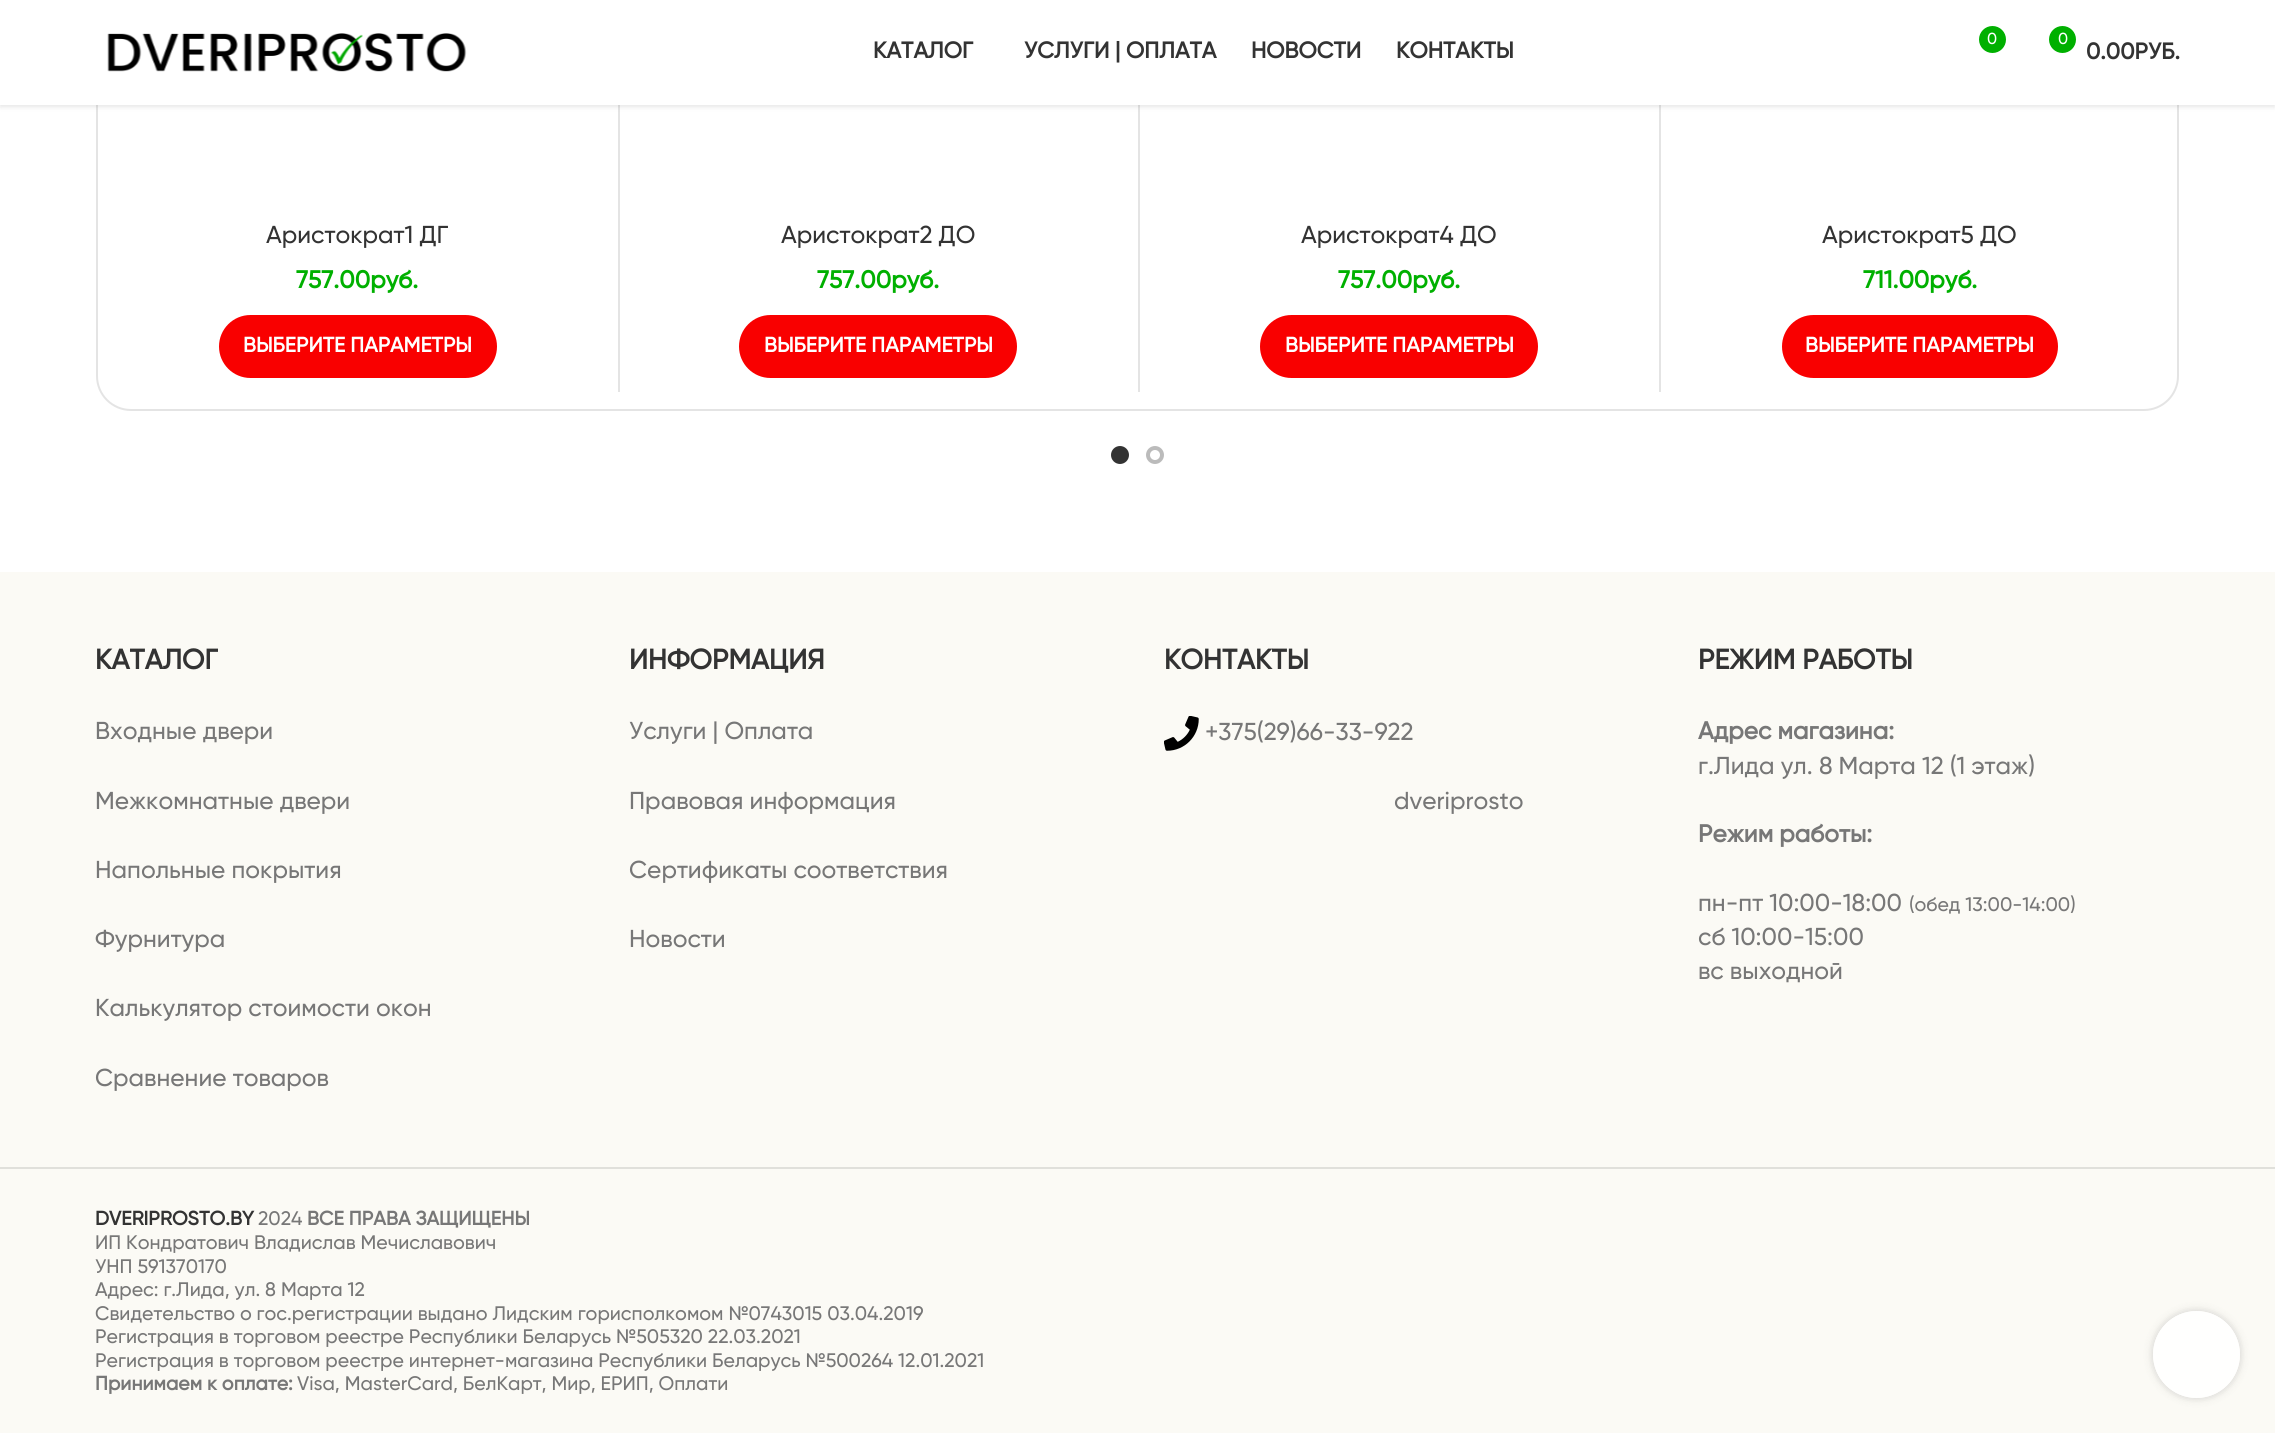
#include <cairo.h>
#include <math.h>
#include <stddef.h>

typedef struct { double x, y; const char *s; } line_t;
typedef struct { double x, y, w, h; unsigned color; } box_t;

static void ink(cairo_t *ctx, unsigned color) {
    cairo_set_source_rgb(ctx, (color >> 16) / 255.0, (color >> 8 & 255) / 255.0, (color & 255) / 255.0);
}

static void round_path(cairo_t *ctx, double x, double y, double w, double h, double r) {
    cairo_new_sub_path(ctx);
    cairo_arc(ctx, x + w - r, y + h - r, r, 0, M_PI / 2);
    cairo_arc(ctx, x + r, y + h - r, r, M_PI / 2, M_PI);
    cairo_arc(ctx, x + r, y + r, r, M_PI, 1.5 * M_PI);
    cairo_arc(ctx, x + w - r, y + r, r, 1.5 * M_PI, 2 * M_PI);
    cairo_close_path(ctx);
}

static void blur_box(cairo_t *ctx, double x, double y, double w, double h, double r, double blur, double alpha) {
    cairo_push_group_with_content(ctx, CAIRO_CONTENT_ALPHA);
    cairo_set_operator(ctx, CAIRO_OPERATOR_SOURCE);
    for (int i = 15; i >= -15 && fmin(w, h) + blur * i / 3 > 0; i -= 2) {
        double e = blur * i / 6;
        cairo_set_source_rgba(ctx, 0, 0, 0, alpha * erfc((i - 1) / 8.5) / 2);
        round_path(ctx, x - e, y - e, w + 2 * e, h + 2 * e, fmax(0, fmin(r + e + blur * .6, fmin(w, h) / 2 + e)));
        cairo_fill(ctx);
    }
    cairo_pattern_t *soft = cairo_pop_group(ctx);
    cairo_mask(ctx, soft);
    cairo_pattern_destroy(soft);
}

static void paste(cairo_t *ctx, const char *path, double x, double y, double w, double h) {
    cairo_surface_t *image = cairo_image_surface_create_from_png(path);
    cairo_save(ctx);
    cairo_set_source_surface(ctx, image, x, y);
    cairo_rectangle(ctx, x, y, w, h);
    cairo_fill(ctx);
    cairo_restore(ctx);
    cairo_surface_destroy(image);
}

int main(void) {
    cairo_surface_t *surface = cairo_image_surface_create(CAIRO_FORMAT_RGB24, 2275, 1433);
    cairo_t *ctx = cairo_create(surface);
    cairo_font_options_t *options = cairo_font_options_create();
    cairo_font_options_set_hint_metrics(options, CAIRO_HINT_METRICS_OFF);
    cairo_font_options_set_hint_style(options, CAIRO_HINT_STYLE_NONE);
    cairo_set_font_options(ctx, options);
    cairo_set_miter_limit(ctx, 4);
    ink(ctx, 0xFFFFFF);
    cairo_paint(ctx);
    round_path(ctx, 97, -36, 2081, 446, 34);
    ink(ctx, 0xE4E4E4);
    cairo_stroke(ctx);
    {
        static const box_t items[] = {
            {618, 105, 2, 287, 0xE4E4E4},
            {1138, 105, 2, 287, 0xE4E4E4},
            {1659, 105, 2, 287, 0xE4E4E4},
        };
        for (size_t i = 0; i < sizeof items / sizeof *items; i++) {
            ink(ctx, items[i].color);
            cairo_rectangle(ctx, items[i].x, items[i].y, items[i].w, items[i].h);
            cairo_fill(ctx);
        }
    }
    ink(ctx, 0x000000);
    blur_box(ctx, 0, 2, 2275, 105, 0, 2.5, 0.1);
    ink(ctx, 0xFFFFFF);
    cairo_rectangle(ctx, 0, 0, 2275, 105);
    cairo_fill(ctx);
    paste(ctx, "media/1.png", 107, 33, 360, 39);
    cairo_select_font_face(ctx, "Gilroy", CAIRO_FONT_SLANT_NORMAL, CAIRO_FONT_WEIGHT_BOLD);
    cairo_set_font_size(ctx, 22.75);
    ink(ctx, 0x333333);
    {
        static const line_t items[] = {
            {873, 58, "КАТАЛОГ"},
            {1024, 58, "УСЛУГИ | ОПЛАТА"},
            {1251, 58, "НОВОСТИ"},
            {1396, 58, "КОНТАКТЫ"},
        };
        for (size_t i = 0; i < sizeof items / sizeof *items; i++) {
            cairo_move_to(ctx, items[i].x, items[i].y);
            cairo_show_text(ctx, items[i].s);
        }
    }
    ink(ctx, 0x00B000);
    cairo_new_path(ctx);
    cairo_arc(ctx, 1992.5, 39.5, 13.5, 0, 2 * M_PI);
    cairo_fill(ctx);
    cairo_select_font_face(ctx, "Gilroy Medium", CAIRO_FONT_SLANT_NORMAL, CAIRO_FONT_WEIGHT_NORMAL);
    cairo_set_font_size(ctx, 16);
    ink(ctx, 0xFFFFFF);
    cairo_move_to(ctx, 1987, 44);
    cairo_show_text(ctx, "0");
    ink(ctx, 0x00B000);
    cairo_new_path(ctx);
    cairo_arc(ctx, 2062.5, 39.5, 13.5, 0, 2 * M_PI);
    cairo_fill(ctx);
    ink(ctx, 0xFFFFFF);
    cairo_move_to(ctx, 2058, 44);
    cairo_show_text(ctx, "0");
    cairo_select_font_face(ctx, "Gilroy", CAIRO_FONT_SLANT_NORMAL, CAIRO_FONT_WEIGHT_BOLD);
    cairo_set_font_size(ctx, 22.75);
    ink(ctx, 0x333333);
    cairo_move_to(ctx, 2086, 59);
    cairo_show_text(ctx, "0.00РУБ.");
    cairo_select_font_face(ctx, "Gilroy Medium", CAIRO_FONT_SLANT_NORMAL, CAIRO_FONT_WEIGHT_NORMAL);
    cairo_set_font_size(ctx, 24.5);
    cairo_move_to(ctx, 266, 243);
    cairo_show_text(ctx, "Аристократ1 ДГ");
    cairo_select_font_face(ctx, "Gilroy", CAIRO_FONT_SLANT_NORMAL, CAIRO_FONT_WEIGHT_BOLD);
    ink(ctx, 0x00B000);
    cairo_move_to(ctx, 296, 288);
    cairo_show_text(ctx, "757.00руб.");
    ink(ctx, 0xF90000);
    round_path(ctx, 219, 315, 278, 63, 31.5);
    cairo_fill(ctx);
    cairo_set_font_size(ctx, 21);
    ink(ctx, 0xFFFFFF);
    cairo_move_to(ctx, 243, 352);
    cairo_show_text(ctx, "ВЫБЕРИТЕ ПАРАМЕТРЫ");
    cairo_select_font_face(ctx, "Gilroy Medium", CAIRO_FONT_SLANT_NORMAL, CAIRO_FONT_WEIGHT_NORMAL);
    cairo_set_font_size(ctx, 24.5);
    ink(ctx, 0x333333);
    cairo_move_to(ctx, 781, 243);
    cairo_show_text(ctx, "Аристократ2 ДО");
    cairo_select_font_face(ctx, "Gilroy", CAIRO_FONT_SLANT_NORMAL, CAIRO_FONT_WEIGHT_BOLD);
    ink(ctx, 0x00B000);
    cairo_move_to(ctx, 817, 288);
    cairo_show_text(ctx, "757.00руб.");
    ink(ctx, 0xF90000);
    round_path(ctx, 739, 315, 278, 63, 31.5);
    cairo_fill(ctx);
    cairo_set_font_size(ctx, 21);
    ink(ctx, 0xFFFFFF);
    cairo_move_to(ctx, 764, 352);
    cairo_show_text(ctx, "ВЫБЕРИТЕ ПАРАМЕТРЫ");
    cairo_select_font_face(ctx, "Gilroy Medium", CAIRO_FONT_SLANT_NORMAL, CAIRO_FONT_WEIGHT_NORMAL);
    cairo_set_font_size(ctx, 24.5);
    ink(ctx, 0x333333);
    cairo_move_to(ctx, 1301, 243);
    cairo_show_text(ctx, "Аристократ4 ДО");
    cairo_select_font_face(ctx, "Gilroy", CAIRO_FONT_SLANT_NORMAL, CAIRO_FONT_WEIGHT_BOLD);
    ink(ctx, 0x00B000);
    cairo_move_to(ctx, 1338, 288);
    cairo_show_text(ctx, "757.00руб.");
    ink(ctx, 0xF90000);
    round_path(ctx, 1260, 315, 278, 63, 31.5);
    cairo_fill(ctx);
    cairo_set_font_size(ctx, 21);
    ink(ctx, 0xFFFFFF);
    cairo_move_to(ctx, 1285, 352);
    cairo_show_text(ctx, "ВЫБЕРИТЕ ПАРАМЕТРЫ");
    cairo_select_font_face(ctx, "Gilroy Medium", CAIRO_FONT_SLANT_NORMAL, CAIRO_FONT_WEIGHT_NORMAL);
    cairo_set_font_size(ctx, 24.5);
    ink(ctx, 0x333333);
    cairo_move_to(ctx, 1822, 243);
    cairo_show_text(ctx, "Аристократ5 ДО");
    cairo_select_font_face(ctx, "Gilroy", CAIRO_FONT_SLANT_NORMAL, CAIRO_FONT_WEIGHT_BOLD);
    ink(ctx, 0x00B000);
    cairo_move_to(ctx, 1863, 288);
    cairo_show_text(ctx, "711.00руб.");
    ink(ctx, 0xF90000);
    round_path(ctx, 1782, 315, 276, 63, 31.5);
    cairo_fill(ctx);
    cairo_set_font_size(ctx, 21);
    ink(ctx, 0xFFFFFF);
    cairo_move_to(ctx, 1805, 352);
    cairo_show_text(ctx, "ВЫБЕРИТЕ ПАРАМЕТРЫ");
    ink(ctx, 0x333333);
    cairo_new_path(ctx);
    cairo_arc(ctx, 1120, 455, 7, 0, 2 * M_PI);
    cairo_fill_preserve(ctx);
    cairo_set_line_width(ctx, 4);
    cairo_stroke(ctx);
    cairo_arc(ctx, 1155, 455, 7, 0, 2 * M_PI);
    ink(ctx, 0xBBBBBB);
    cairo_stroke(ctx);
    ink(ctx, 0xFBFAF5);
    cairo_rectangle(ctx, 0, 572, 2275, 861);
    cairo_fill(ctx);
    cairo_set_font_size(ctx, 28);
    ink(ctx, 0x333333);
    cairo_move_to(ctx, 95, 669);
    cairo_show_text(ctx, "КАТАЛОГ");
    cairo_select_font_face(ctx, "Gilroy Medium", CAIRO_FONT_SLANT_NORMAL, CAIRO_FONT_WEIGHT_NORMAL);
    cairo_set_font_size(ctx, 24.5);
    ink(ctx, 0x777777);
    {
        static const line_t items[] = {
            {95, 739, "Входные двери"},
            {95, 809, "Межкомнатные двери"},
            {95, 878, "Напольные покрытия"},
            {95, 947, "Фурнитура"},
            {95, 1016, "Калькулятор стоимости окон"},
            {95, 1086, "Сравнение товаров"},
        };
        for (size_t i = 0; i < sizeof items / sizeof *items; i++) {
            cairo_move_to(ctx, items[i].x, items[i].y);
            cairo_show_text(ctx, items[i].s);
        }
    }
    cairo_select_font_face(ctx, "Gilroy", CAIRO_FONT_SLANT_NORMAL, CAIRO_FONT_WEIGHT_BOLD);
    cairo_set_font_size(ctx, 28);
    ink(ctx, 0x333333);
    cairo_move_to(ctx, 629, 669);
    cairo_show_text(ctx, "ИНФОРМАЦИЯ");
    cairo_select_font_face(ctx, "Gilroy Medium", CAIRO_FONT_SLANT_NORMAL, CAIRO_FONT_WEIGHT_NORMAL);
    cairo_set_font_size(ctx, 24.5);
    ink(ctx, 0x777777);
    {
        static const line_t items[] = {
            {629, 739, "Услуги | Оплата"},
            {629, 809, "Правовая информация"},
            {629, 878, "Сертификаты соответствия"},
            {629, 947, "Новости"},
        };
        for (size_t i = 0; i < sizeof items / sizeof *items; i++) {
            cairo_move_to(ctx, items[i].x, items[i].y);
            cairo_show_text(ctx, items[i].s);
        }
    }
    cairo_select_font_face(ctx, "Gilroy", CAIRO_FONT_SLANT_NORMAL, CAIRO_FONT_WEIGHT_BOLD);
    cairo_set_font_size(ctx, 28);
    ink(ctx, 0x333333);
    cairo_move_to(ctx, 1164, 669);
    cairo_show_text(ctx, "КОНТАКТЫ");
    paste(ctx, "media/2.png", 1164, 716, 35, 35);
    cairo_select_font_face(ctx, "Gilroy Medium", CAIRO_FONT_SLANT_NORMAL, CAIRO_FONT_WEIGHT_NORMAL);
    cairo_set_font_size(ctx, 24.5);
    ink(ctx, 0x777777);
    cairo_move_to(ctx, 1205, 740);
    cairo_show_text(ctx, "+375(29)66-33-922");
    cairo_move_to(ctx, 1394, 809);
    cairo_show_text(ctx, "dveriprosto");
    cairo_select_font_face(ctx, "Gilroy", CAIRO_FONT_SLANT_NORMAL, CAIRO_FONT_WEIGHT_BOLD);
    cairo_set_font_size(ctx, 28);
    ink(ctx, 0x333333);
    cairo_move_to(ctx, 1698, 669);
    cairo_show_text(ctx, "РЕЖИМ РАБОТЫ");
    cairo_set_font_size(ctx, 24.5);
    ink(ctx, 0x777777);
    cairo_move_to(ctx, 1698, 739);
    cairo_show_text(ctx, "Адрес магазина:");
    cairo_select_font_face(ctx, "Gilroy Medium", CAIRO_FONT_SLANT_NORMAL, CAIRO_FONT_WEIGHT_NORMAL);
    cairo_move_to(ctx, 1698, 774);
    cairo_show_text(ctx, "г.Лида ул. 8 Марта 12 (1 этаж)");
    cairo_select_font_face(ctx, "Gilroy", CAIRO_FONT_SLANT_NORMAL, CAIRO_FONT_WEIGHT_BOLD);
    cairo_move_to(ctx, 1698, 842);
    cairo_show_text(ctx, "Режим работы:");
    cairo_select_font_face(ctx, "Gilroy Medium", CAIRO_FONT_SLANT_NORMAL, CAIRO_FONT_WEIGHT_NORMAL);
    cairo_move_to(ctx, 1698, 911);
    cairo_show_text(ctx, "пн-пт 10:00-18:00");
    cairo_set_font_size(ctx, 19.6);
    cairo_move_to(ctx, 1909, 911);
    cairo_show_text(ctx, "(обед 13:00-14:00)");
    cairo_set_font_size(ctx, 24.5);
    cairo_move_to(ctx, 1698, 945);
    cairo_show_text(ctx, "сб 10:00-15:00");
    cairo_move_to(ctx, 1698, 979);
    cairo_show_text(ctx, "вс выходной");
    ink(ctx, 0xE0E0DB);
    cairo_rectangle(ctx, 0, 1167, 2275, 2);
    cairo_fill(ctx);
    cairo_select_font_face(ctx, "Gilroy", CAIRO_FONT_SLANT_NORMAL, CAIRO_FONT_WEIGHT_BOLD);
    cairo_set_font_size(ctx, 19.6);
    ink(ctx, 0x333333);
    cairo_move_to(ctx, 95, 1225);
    cairo_show_text(ctx, "DVERIPROSTO.BY");
    cairo_select_font_face(ctx, "Gilroy Medium", CAIRO_FONT_SLANT_NORMAL, CAIRO_FONT_WEIGHT_NORMAL);
    ink(ctx, 0x777777);
    cairo_move_to(ctx, 258, 1225);
    cairo_show_text(ctx, "2024");
    cairo_select_font_face(ctx, "Gilroy", CAIRO_FONT_SLANT_NORMAL, CAIRO_FONT_WEIGHT_BOLD);
    cairo_move_to(ctx, 307, 1225);
    cairo_show_text(ctx, "ВСЕ ПРАВА ЗАЩИЩЕНЫ");
    cairo_select_font_face(ctx, "Gilroy Medium", CAIRO_FONT_SLANT_NORMAL, CAIRO_FONT_WEIGHT_NORMAL);
    {
        static const line_t items[] = {
            {95, 1249, "ИП Кондратович Владислав Мечиславович"},
            {95, 1273, "УНП 591370170"},
            {95, 1296, "Адрес: г.Лида, ул. 8 Марта 12"},
            {95, 1320, "Свидетельство о гос.регистрации выдано Лидским горисполкомом №0743015 03.04.2019"},
            {95, 1343, "Регистрация в торговом реестре Республики Беларусь №505320 22.03.2021"},
            {95, 1367, "Регистрация в торговом реестре интернет-магазина Республики Беларусь №500264 12.01.2021"},
        };
        for (size_t i = 0; i < sizeof items / sizeof *items; i++) {
            cairo_move_to(ctx, items[i].x, items[i].y);
            cairo_show_text(ctx, items[i].s);
        }
    }
    cairo_select_font_face(ctx, "Gilroy", CAIRO_FONT_SLANT_NORMAL, CAIRO_FONT_WEIGHT_BOLD);
    cairo_move_to(ctx, 95, 1390);
    cairo_show_text(ctx, "Принимаем к оплате:");
    cairo_select_font_face(ctx, "Gilroy Medium", CAIRO_FONT_SLANT_NORMAL, CAIRO_FONT_WEIGHT_NORMAL);
    cairo_move_to(ctx, 297, 1390);
    cairo_show_text(ctx, "Visa, MasterCard, БелКарт, Мир, ЕРИП, Оплати");
    cairo_save(ctx);
    cairo_set_fill_rule(ctx, CAIRO_FILL_RULE_EVEN_ODD);
    cairo_new_path(ctx);
    cairo_move_to(ctx, 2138, 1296);
    cairo_line_to(ctx, 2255, 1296);
    cairo_line_to(ctx, 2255, 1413);
    cairo_line_to(ctx, 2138, 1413);
    cairo_close_path(ctx);
    cairo_move_to(ctx, 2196.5, 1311);
    cairo_curve_to(ctx, 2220.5, 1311, 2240, 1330.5, 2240, 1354.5);
    cairo_curve_to(ctx, 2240, 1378.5, 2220.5, 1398, 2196.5, 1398);
    cairo_curve_to(ctx, 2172.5, 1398, 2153, 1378.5, 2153, 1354.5);
    cairo_curve_to(ctx, 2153, 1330.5, 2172.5, 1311, 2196.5, 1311);
    cairo_close_path(ctx);
    cairo_clip(ctx);
    ink(ctx, 0x000000);
    blur_box(ctx, 2153, 1311, 87, 87, 43.5, 4.5, 0.17);
    cairo_restore(ctx);
    cairo_set_source_rgba(ctx, 1, 1, 1, 0.9);
    cairo_arc(ctx, 2196.5, 1354.5, 43.5, 0, 2 * M_PI);
    cairo_fill(ctx);
    cairo_surface_write_to_png(surface, "image.png");
    cairo_font_options_destroy(options);
    cairo_destroy(ctx);
    cairo_surface_destroy(surface);
    return 0;
}
